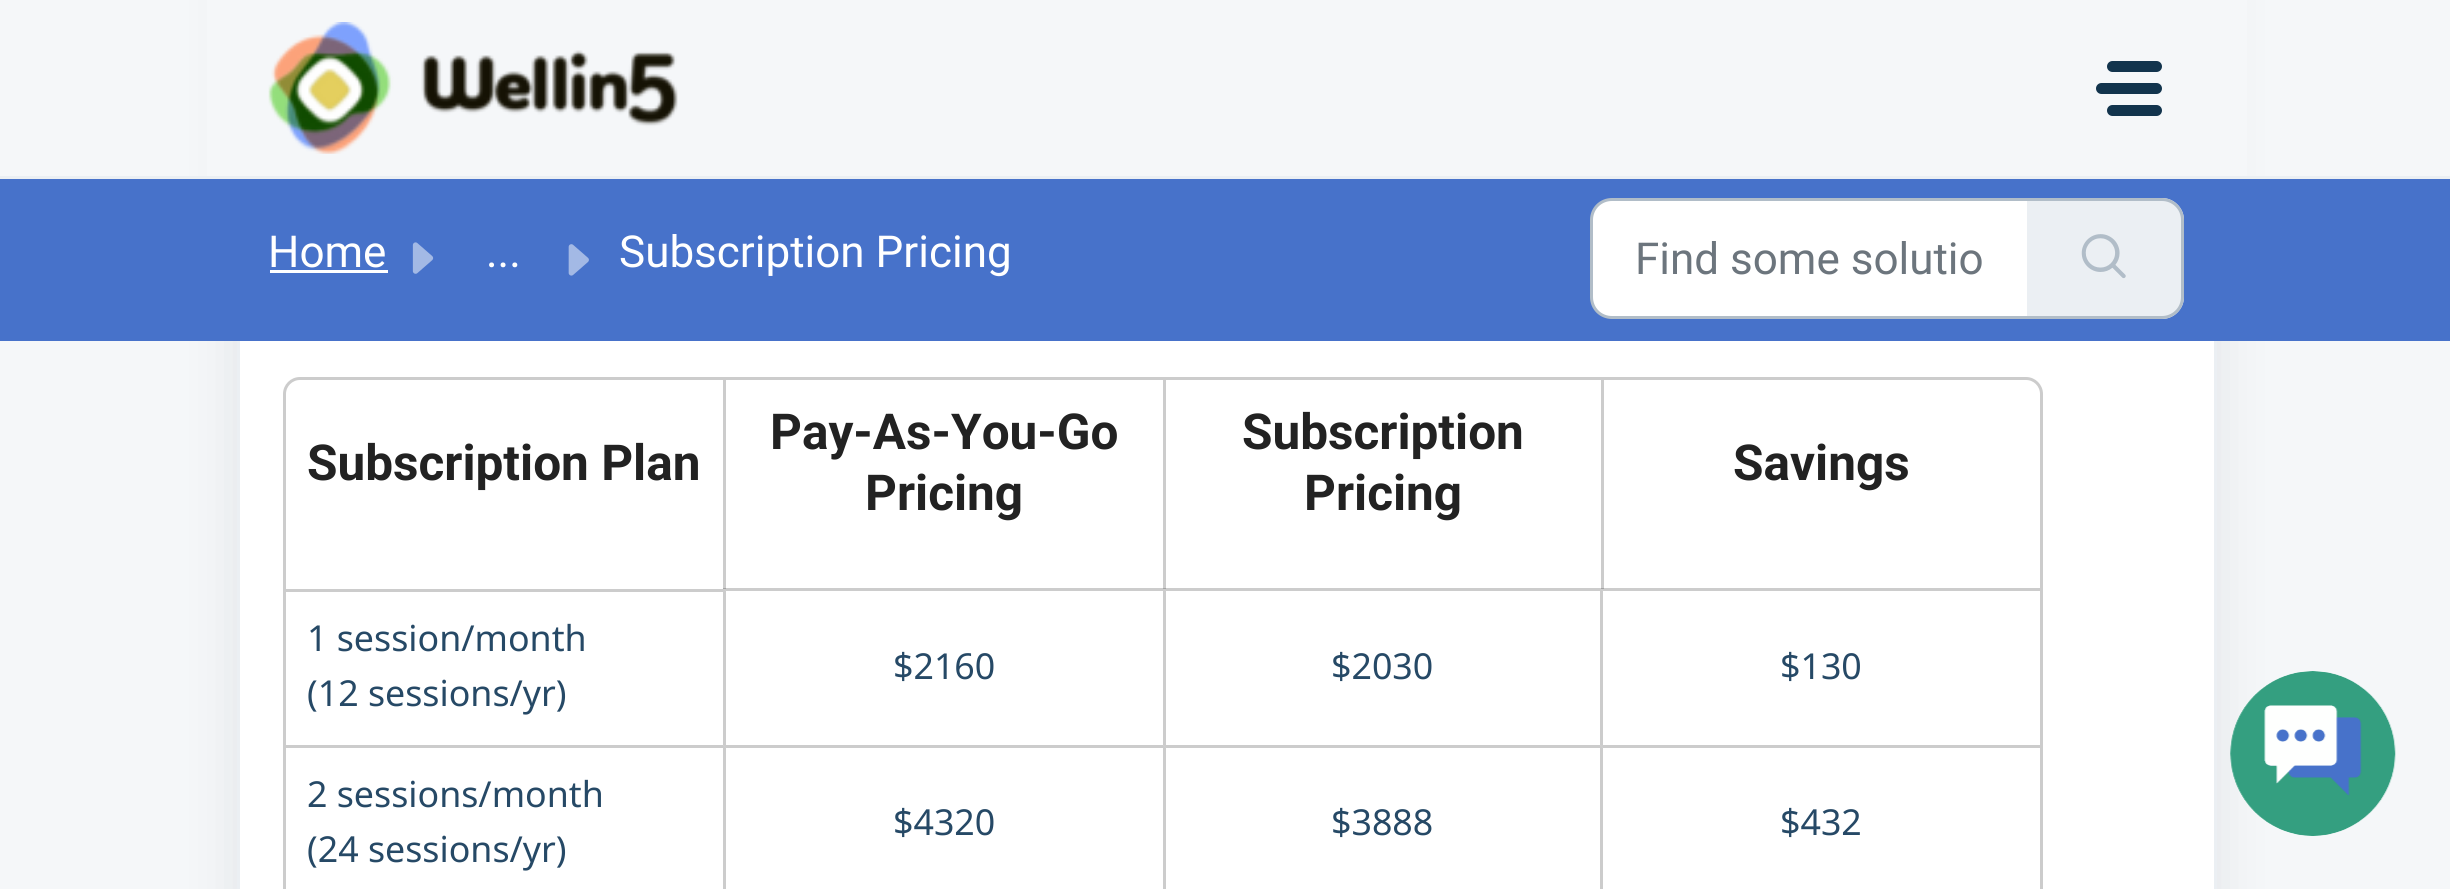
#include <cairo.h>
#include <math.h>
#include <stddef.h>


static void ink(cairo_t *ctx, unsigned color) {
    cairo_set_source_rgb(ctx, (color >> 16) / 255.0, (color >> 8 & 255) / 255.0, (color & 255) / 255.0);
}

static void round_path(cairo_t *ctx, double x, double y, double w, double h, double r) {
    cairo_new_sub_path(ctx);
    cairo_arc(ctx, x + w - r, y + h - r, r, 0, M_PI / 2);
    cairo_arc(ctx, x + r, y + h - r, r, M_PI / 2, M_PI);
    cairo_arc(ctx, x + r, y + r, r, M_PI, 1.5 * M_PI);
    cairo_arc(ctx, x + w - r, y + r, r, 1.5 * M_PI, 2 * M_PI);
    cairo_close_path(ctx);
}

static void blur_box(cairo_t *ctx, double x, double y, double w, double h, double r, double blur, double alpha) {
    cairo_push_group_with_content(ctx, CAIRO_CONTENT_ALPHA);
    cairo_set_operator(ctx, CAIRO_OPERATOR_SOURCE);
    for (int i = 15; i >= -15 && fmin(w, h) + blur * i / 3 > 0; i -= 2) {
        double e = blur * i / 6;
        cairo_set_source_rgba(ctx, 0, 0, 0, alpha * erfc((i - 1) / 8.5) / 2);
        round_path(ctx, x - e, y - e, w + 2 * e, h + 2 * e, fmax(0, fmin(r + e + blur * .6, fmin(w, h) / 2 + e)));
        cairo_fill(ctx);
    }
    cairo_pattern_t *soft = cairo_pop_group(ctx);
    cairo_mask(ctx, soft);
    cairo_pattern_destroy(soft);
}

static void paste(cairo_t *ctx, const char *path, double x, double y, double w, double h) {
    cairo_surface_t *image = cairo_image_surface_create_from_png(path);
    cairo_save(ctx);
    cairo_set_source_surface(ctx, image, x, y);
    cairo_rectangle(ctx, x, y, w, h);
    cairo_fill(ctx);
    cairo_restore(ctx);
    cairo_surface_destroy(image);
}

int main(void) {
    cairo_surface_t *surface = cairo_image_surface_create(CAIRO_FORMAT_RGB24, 2450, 889);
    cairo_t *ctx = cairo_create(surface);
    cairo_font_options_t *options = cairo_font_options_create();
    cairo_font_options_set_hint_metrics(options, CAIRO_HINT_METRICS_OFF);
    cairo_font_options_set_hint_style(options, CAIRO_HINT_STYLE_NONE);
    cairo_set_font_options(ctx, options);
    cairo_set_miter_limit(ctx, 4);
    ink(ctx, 0xF5F7F9);
    cairo_paint(ctx);
    ink(ctx, 0xFFFFFF);
    cairo_rectangle(ctx, 240, 341, 1974, 548);
    cairo_fill(ctx);
    cairo_save(ctx);
    cairo_set_fill_rule(ctx, CAIRO_FILL_RULE_EVEN_ODD);
    cairo_new_path(ctx);
    cairo_move_to(ctx, 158, 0);
    cairo_line_to(ctx, 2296, 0);
    cairo_line_to(ctx, 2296, 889);
    cairo_line_to(ctx, 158, 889);
    cairo_close_path(ctx);
    cairo_move_to(ctx, 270, -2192);
    cairo_line_to(ctx, 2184, -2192);
    cairo_curve_to(ctx, 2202, -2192, 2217, -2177, 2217, -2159);
    cairo_line_to(ctx, 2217, 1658);
    cairo_curve_to(ctx, 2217, 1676, 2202, 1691, 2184, 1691);
    cairo_line_to(ctx, 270, 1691);
    cairo_curve_to(ctx, 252, 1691, 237, 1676, 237, 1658);
    cairo_line_to(ctx, 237, -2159);
    cairo_curve_to(ctx, 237, -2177, 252, -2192, 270, -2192);
    cairo_close_path(ctx);
    cairo_clip(ctx);
    ink(ctx, 0x27313A);
    blur_box(ctx, 237, -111, 1980, 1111, 33, 26, 0.1);
    cairo_restore(ctx);
    cairo_rectangle(ctx, 238.5, -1.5, 1977, 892);
    ink(ctx, 0xEBEFF3);
    cairo_set_line_width(ctx, 3);
    cairo_stroke(ctx);
    ink(ctx, 0xF5F7F9);
    cairo_rectangle(ctx, 207, 0, 2040, 176);
    cairo_fill(ctx);
    ink(ctx, 0xEBEFF3);
    cairo_rectangle(ctx, 0, 176, 2450, 3);
    cairo_fill(ctx);
    paste(ctx, "media/1.png", 268, 22, 410, 132);
    ink(ctx, 0x12344D);
    round_path(ctx, 2107, 61, 55, 11, 5.5);
    cairo_fill(ctx);
    round_path(ctx, 2096, 83, 66, 11, 5.5);
    cairo_fill(ctx);
    round_path(ctx, 2107, 105, 55, 11, 5.5);
    cairo_fill(ctx);
    ink(ctx, 0x4772CA);
    cairo_rectangle(ctx, 0, 179, 2450, 162);
    cairo_fill(ctx);
    cairo_select_font_face(ctx, "Roboto", CAIRO_FONT_SLANT_NORMAL, CAIRO_FONT_WEIGHT_NORMAL);
    cairo_set_font_size(ctx, 44);
    ink(ctx, 0xFFFFFF);
    cairo_move_to(ctx, 268, 267);
    cairo_show_text(ctx, "Home");
    cairo_rectangle(ctx, 270, 270, 118, 3);
    cairo_fill(ctx);
    paste(ctx, "media/2.png", 412, 242, 22, 32);
    cairo_move_to(ctx, 486, 267);
    cairo_show_text(ctx, "...");
    paste(ctx, "media/3.png", 568, 244, 21, 32);
    cairo_move_to(ctx, 619, 267);
    cairo_show_text(ctx, "Subscription Pricing");
    cairo_new_path(ctx);
    cairo_move_to(ctx, 1612, 199.5);
    cairo_line_to(ctx, 2028.5, 199.5);
    cairo_line_to(ctx, 2028.5, 317.5);
    cairo_line_to(ctx, 1612, 317.5);
    cairo_curve_to(ctx, 1600.5, 317.5, 1591.5, 308.5, 1591.5, 297);
    cairo_line_to(ctx, 1591.5, 220);
    cairo_curve_to(ctx, 1591.5, 208.5, 1600.5, 199.5, 1612, 199.5);
    cairo_close_path(ctx);
    cairo_fill_preserve(ctx);
    ink(ctx, 0xB1BDC8);
    cairo_stroke(ctx);
    ink(ctx, 0x6C757D);
    cairo_move_to(ctx, 1635, 274);
    cairo_show_text(ctx, "Find some solutio");
    ink(ctx, 0xEBEFF3);
    cairo_new_path(ctx);
    cairo_move_to(ctx, 2027, 198);
    cairo_line_to(ctx, 2162, 198);
    cairo_curve_to(ctx, 2174, 198, 2184, 208, 2184, 220);
    cairo_line_to(ctx, 2184, 297);
    cairo_curve_to(ctx, 2184, 309, 2174, 319, 2162, 319);
    cairo_line_to(ctx, 2027, 319);
    cairo_close_path(ctx);
    cairo_fill(ctx);
    ink(ctx, 0xB1BDC8);
    cairo_set_fill_rule(ctx, CAIRO_FILL_RULE_EVEN_ODD);
    cairo_new_path(ctx);
    cairo_move_to(ctx, 2027, 198);
    cairo_line_to(ctx, 2162, 198);
    cairo_curve_to(ctx, 2174, 198, 2184, 208, 2184, 220);
    cairo_line_to(ctx, 2184, 297);
    cairo_curve_to(ctx, 2184, 309, 2174, 319, 2162, 319);
    cairo_line_to(ctx, 2027, 319);
    cairo_close_path(ctx);
    cairo_move_to(ctx, 2027, 201);
    cairo_line_to(ctx, 2162, 201);
    cairo_curve_to(ctx, 2172, 201, 2181, 209, 2181, 220);
    cairo_line_to(ctx, 2181, 297);
    cairo_curve_to(ctx, 2181, 308, 2172, 316, 2162, 316);
    cairo_line_to(ctx, 2027, 316);
    cairo_close_path(ctx);
    cairo_fill(ctx);
    paste(ctx, "media/4.png", 2081, 234, 45, 45);
    round_path(ctx, 284.5, 378.5, 1757, 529, 15.5);
    ink(ctx, 0xCCCCCC);
    cairo_stroke(ctx);
    cairo_select_font_face(ctx, "Roboto", CAIRO_FONT_SLANT_NORMAL, CAIRO_FONT_WEIGHT_BOLD);
    cairo_set_font_size(ctx, 49.5);
    ink(ctx, 0x222222);
    cairo_move_to(ctx, 307, 480);
    cairo_show_text(ctx, "Subscription Plan");
    ink(ctx, 0xCCCCCC);
    cairo_rectangle(ctx, 723, 380, 3, 209);
    cairo_fill(ctx);
    ink(ctx, 0x222222);
    cairo_move_to(ctx, 770, 449);
    cairo_show_text(ctx, "Pay-As-You-Go");
    cairo_move_to(ctx, 865, 510);
    cairo_show_text(ctx, "Pricing");
    ink(ctx, 0xCCCCCC);
    cairo_rectangle(ctx, 1163, 380, 3, 209);
    cairo_fill(ctx);
    ink(ctx, 0x222222);
    cairo_move_to(ctx, 1242, 449);
    cairo_show_text(ctx, "Subscription");
    cairo_move_to(ctx, 1304, 510);
    cairo_show_text(ctx, "Pricing");
    ink(ctx, 0xCCCCCC);
    cairo_rectangle(ctx, 1601, 380, 3, 209);
    cairo_fill(ctx);
    ink(ctx, 0x222222);
    cairo_move_to(ctx, 1733, 480);
    cairo_show_text(ctx, "Savings");
    ink(ctx, 0xCCCCCC);
    cairo_rectangle(ctx, 286, 589, 437, 3);
    cairo_fill(ctx);
    cairo_select_font_face(ctx, "Noto Sans", CAIRO_FONT_SLANT_NORMAL, CAIRO_FONT_WEIGHT_NORMAL);
    cairo_set_font_size(ctx, 35.75);
    ink(ctx, 0x264966);
    cairo_move_to(ctx, 307, 651);
    cairo_show_text(ctx, "1 session/month");
    cairo_move_to(ctx, 307, 706);
    cairo_show_text(ctx, "(12 sessions/yr)");
    cairo_set_source_rgba(ctx, 0, 0, 0, 0.2);
    cairo_set_fill_rule(ctx, CAIRO_FILL_RULE_WINDING);
    cairo_new_path(ctx);
    cairo_move_to(ctx, 723, 588);
    cairo_line_to(ctx, 1163, 588);
    cairo_line_to(ctx, 1163, 591);
    cairo_line_to(ctx, 726, 591);
    cairo_close_path(ctx);
    cairo_fill(ctx);
    cairo_new_path(ctx);
    cairo_move_to(ctx, 723, 745);
    cairo_line_to(ctx, 723, 588);
    cairo_line_to(ctx, 726, 591);
    cairo_line_to(ctx, 726, 745);
    cairo_close_path(ctx);
    cairo_fill(ctx);
    ink(ctx, 0x264966);
    cairo_move_to(ctx, 893, 679);
    cairo_show_text(ctx, "$2160");
    cairo_set_source_rgba(ctx, 0, 0, 0, 0.2);
    cairo_new_path(ctx);
    cairo_move_to(ctx, 1163, 588);
    cairo_line_to(ctx, 1600, 588);
    cairo_line_to(ctx, 1600, 591);
    cairo_line_to(ctx, 1166, 591);
    cairo_close_path(ctx);
    cairo_fill(ctx);
    cairo_new_path(ctx);
    cairo_move_to(ctx, 1163, 745);
    cairo_line_to(ctx, 1163, 588);
    cairo_line_to(ctx, 1166, 591);
    cairo_line_to(ctx, 1166, 745);
    cairo_close_path(ctx);
    cairo_fill(ctx);
    ink(ctx, 0x264966);
    cairo_move_to(ctx, 1331, 679);
    cairo_show_text(ctx, "$2030");
    cairo_set_source_rgba(ctx, 0, 0, 0, 0.2);
    cairo_new_path(ctx);
    cairo_move_to(ctx, 1600, 588);
    cairo_line_to(ctx, 2040, 588);
    cairo_line_to(ctx, 2040, 591);
    cairo_line_to(ctx, 1603, 591);
    cairo_close_path(ctx);
    cairo_fill(ctx);
    cairo_new_path(ctx);
    cairo_move_to(ctx, 1600, 745);
    cairo_line_to(ctx, 1600, 588);
    cairo_line_to(ctx, 1603, 591);
    cairo_line_to(ctx, 1603, 745);
    cairo_close_path(ctx);
    cairo_fill(ctx);
    ink(ctx, 0x264966);
    cairo_move_to(ctx, 1780, 679);
    cairo_show_text(ctx, "$130");
    ink(ctx, 0xCCCCCC);
    cairo_rectangle(ctx, 286, 745, 437, 3);
    cairo_fill(ctx);
    ink(ctx, 0x264966);
    cairo_move_to(ctx, 307, 807);
    cairo_show_text(ctx, "2 sessions/month");
    cairo_move_to(ctx, 307, 862);
    cairo_show_text(ctx, "(24 sessions/yr)");
    ink(ctx, 0xCCCCCC);
    cairo_new_path(ctx);
    cairo_move_to(ctx, 723, 745);
    cairo_line_to(ctx, 1163, 745);
    cairo_line_to(ctx, 1163, 748);
    cairo_line_to(ctx, 726, 748);
    cairo_close_path(ctx);
    cairo_fill(ctx);
    cairo_set_source_rgba(ctx, 0, 0, 0, 0.2);
    cairo_new_path(ctx);
    cairo_move_to(ctx, 723, 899);
    cairo_line_to(ctx, 723, 745);
    cairo_line_to(ctx, 726, 748);
    cairo_line_to(ctx, 726, 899);
    cairo_close_path(ctx);
    cairo_fill(ctx);
    ink(ctx, 0x264966);
    cairo_move_to(ctx, 893, 835);
    cairo_show_text(ctx, "$4320");
    ink(ctx, 0xCCCCCC);
    cairo_new_path(ctx);
    cairo_move_to(ctx, 1163, 745);
    cairo_line_to(ctx, 1600, 745);
    cairo_line_to(ctx, 1600, 748);
    cairo_line_to(ctx, 1166, 748);
    cairo_close_path(ctx);
    cairo_fill(ctx);
    cairo_set_source_rgba(ctx, 0, 0, 0, 0.2);
    cairo_new_path(ctx);
    cairo_move_to(ctx, 1163, 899);
    cairo_line_to(ctx, 1163, 745);
    cairo_line_to(ctx, 1166, 748);
    cairo_line_to(ctx, 1166, 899);
    cairo_close_path(ctx);
    cairo_fill(ctx);
    ink(ctx, 0x264966);
    cairo_move_to(ctx, 1331, 835);
    cairo_show_text(ctx, "$3888");
    ink(ctx, 0xCCCCCC);
    cairo_new_path(ctx);
    cairo_move_to(ctx, 1600, 745);
    cairo_line_to(ctx, 2040, 745);
    cairo_line_to(ctx, 2040, 748);
    cairo_line_to(ctx, 1603, 748);
    cairo_close_path(ctx);
    cairo_fill(ctx);
    cairo_set_source_rgba(ctx, 0, 0, 0, 0.2);
    cairo_new_path(ctx);
    cairo_move_to(ctx, 1600, 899);
    cairo_line_to(ctx, 1600, 745);
    cairo_line_to(ctx, 1603, 748);
    cairo_line_to(ctx, 1603, 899);
    cairo_close_path(ctx);
    cairo_fill(ctx);
    ink(ctx, 0x264966);
    cairo_move_to(ctx, 1780, 835);
    cairo_show_text(ctx, "$432");
    ink(ctx, 0xFFFFFF);
    cairo_new_path(ctx);
    cairo_arc(ctx, 2312.5, 753.5, 82.5, 0, 2 * M_PI);
    cairo_fill(ctx);
    paste(ctx, "media/5.png", 2230, 671, 166, 165);
    cairo_surface_write_to_png(surface, "image.png");
    cairo_font_options_destroy(options);
    cairo_destroy(ctx);
    cairo_surface_destroy(surface);
    return 0;
}
